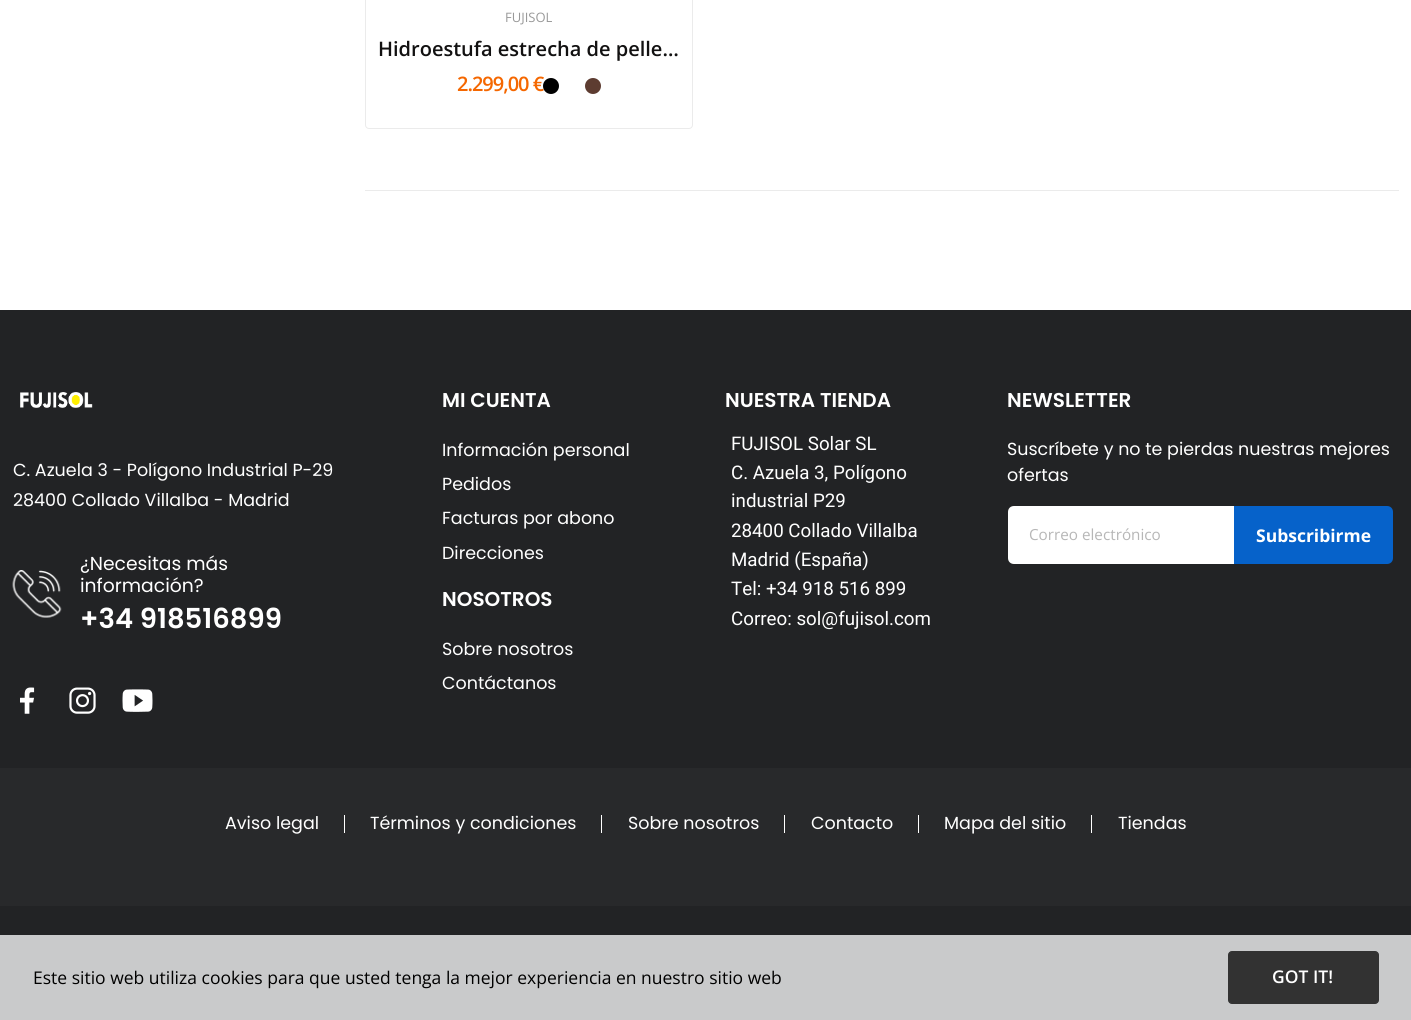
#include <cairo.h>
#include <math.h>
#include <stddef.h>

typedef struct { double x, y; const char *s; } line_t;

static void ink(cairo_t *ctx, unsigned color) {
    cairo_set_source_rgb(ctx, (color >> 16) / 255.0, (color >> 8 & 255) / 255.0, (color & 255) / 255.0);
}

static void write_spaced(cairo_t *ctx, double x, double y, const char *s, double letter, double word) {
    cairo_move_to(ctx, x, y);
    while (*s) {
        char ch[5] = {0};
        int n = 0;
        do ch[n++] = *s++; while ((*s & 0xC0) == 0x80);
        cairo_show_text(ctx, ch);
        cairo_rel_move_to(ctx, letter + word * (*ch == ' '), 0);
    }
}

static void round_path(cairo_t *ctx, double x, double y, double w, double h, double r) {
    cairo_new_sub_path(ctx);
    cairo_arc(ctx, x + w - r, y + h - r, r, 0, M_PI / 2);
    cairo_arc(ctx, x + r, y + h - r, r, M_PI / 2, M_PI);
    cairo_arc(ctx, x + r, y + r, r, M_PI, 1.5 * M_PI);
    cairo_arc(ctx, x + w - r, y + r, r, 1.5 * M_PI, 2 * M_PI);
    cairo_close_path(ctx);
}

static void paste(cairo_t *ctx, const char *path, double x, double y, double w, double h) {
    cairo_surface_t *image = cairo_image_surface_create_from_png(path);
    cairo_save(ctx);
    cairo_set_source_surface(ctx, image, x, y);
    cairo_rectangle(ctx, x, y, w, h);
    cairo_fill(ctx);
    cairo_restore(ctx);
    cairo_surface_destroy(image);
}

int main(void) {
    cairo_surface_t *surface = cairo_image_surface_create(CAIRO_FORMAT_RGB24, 1411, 1020);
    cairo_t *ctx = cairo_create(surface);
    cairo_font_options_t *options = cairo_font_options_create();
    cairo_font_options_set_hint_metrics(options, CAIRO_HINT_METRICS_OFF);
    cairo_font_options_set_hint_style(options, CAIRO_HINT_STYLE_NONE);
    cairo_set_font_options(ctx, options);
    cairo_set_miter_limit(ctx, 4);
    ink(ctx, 0xFFFFFF);
    cairo_paint(ctx);
    round_path(ctx, 365.5, -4.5, 327, 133, 3.5);
    ink(ctx, 0xEBEBEB);
    cairo_set_line_width(ctx, 1);
    cairo_stroke(ctx);
    cairo_select_font_face(ctx, "Open Sans", CAIRO_FONT_SLANT_NORMAL, CAIRO_FONT_WEIGHT_NORMAL);
    cairo_set_font_size(ctx, 13);
    ink(ctx, 0x999999);
    cairo_move_to(ctx, 505, 22);
    cairo_show_text(ctx, "FUJISOL");
    cairo_select_font_face(ctx, "Open Sans SemiBold", CAIRO_FONT_SLANT_NORMAL, CAIRO_FONT_WEIGHT_NORMAL);
    cairo_set_font_size(ctx, 20);
    ink(ctx, 0x121111);
    cairo_move_to(ctx, 378, 56);
    cairo_show_text(ctx, "Hidroestufa estrecha de pelle…");
    ink(ctx, 0xF56700);
    write_spaced(ctx, 457, 91, "2.299,00 €", -1, 0);
    ink(ctx, 0x000000);
    cairo_new_path(ctx);
    cairo_arc(ctx, 551, 86, 8, 0, 2 * M_PI);
    cairo_fill(ctx);
    ink(ctx, 0x5D3C31);
    cairo_arc(ctx, 593, 86, 8, 0, 2 * M_PI);
    cairo_fill(ctx);
    ink(ctx, 0xEBEBEB);
    cairo_rectangle(ctx, 365, 190, 1034, 1);
    cairo_fill(ctx);
    ink(ctx, 0x222325);
    cairo_rectangle(ctx, 0, 310, 1411, 458);
    cairo_fill(ctx);
    paste(ctx, "media/1.png", 20, 392, 73, 16);
    cairo_select_font_face(ctx, "Poppins", CAIRO_FONT_SLANT_NORMAL, CAIRO_FONT_WEIGHT_NORMAL);
    cairo_set_font_size(ctx, 17.5);
    ink(ctx, 0xFFFFFF);
    cairo_move_to(ctx, 13, 476);
    cairo_show_text(ctx, "C. Azuela 3 - Polígono Industrial P-29");
    cairo_move_to(ctx, 13, 506);
    cairo_show_text(ctx, "28400 Collado Villalba - Madrid");
    paste(ctx, "media/2.png", 12, 570, 50, 48);
    cairo_set_font_size(ctx, 18.75);
    cairo_move_to(ctx, 80, 570);
    cairo_show_text(ctx, "¿Necesitas más");
    cairo_move_to(ctx, 80, 592);
    cairo_show_text(ctx, "información?");
    cairo_select_font_face(ctx, "Poppins SemiBold", CAIRO_FONT_SLANT_NORMAL, CAIRO_FONT_WEIGHT_NORMAL);
    cairo_set_font_size(ctx, 27.5);
    cairo_move_to(ctx, 80, 628);
    cairo_show_text(ctx, "+34 918516899");
    paste(ctx, "media/3.png", 20, 687, 15, 27);
    paste(ctx, "media/4.png", 69, 687, 27, 27);
    paste(ctx, "media/5.png", 122, 689, 31, 23);
    cairo_set_font_size(ctx, 20);
    cairo_move_to(ctx, 442, 407);
    cairo_show_text(ctx, "MI CUENTA");
    cairo_select_font_face(ctx, "Poppins", CAIRO_FONT_SLANT_NORMAL, CAIRO_FONT_WEIGHT_NORMAL);
    cairo_set_font_size(ctx, 17.5);
    {
        static const line_t items[] = {
            {442, 456, "Información personal"},
            {442, 490, "Pedidos"},
            {442, 524, "Facturas por abono"},
            {442, 559, "Direcciones"},
        };
        for (size_t i = 0; i < sizeof items / sizeof *items; i++) {
            cairo_move_to(ctx, items[i].x, items[i].y);
            cairo_show_text(ctx, items[i].s);
        }
    }
    cairo_select_font_face(ctx, "Poppins SemiBold", CAIRO_FONT_SLANT_NORMAL, CAIRO_FONT_WEIGHT_NORMAL);
    cairo_set_font_size(ctx, 20);
    cairo_move_to(ctx, 442, 606);
    cairo_show_text(ctx, "NOSOTROS");
    cairo_select_font_face(ctx, "Poppins", CAIRO_FONT_SLANT_NORMAL, CAIRO_FONT_WEIGHT_NORMAL);
    cairo_set_font_size(ctx, 17.5);
    cairo_move_to(ctx, 442, 655);
    cairo_show_text(ctx, "Sobre nosotros");
    cairo_move_to(ctx, 442, 689);
    cairo_show_text(ctx, "Contáctanos");
    cairo_select_font_face(ctx, "Poppins SemiBold", CAIRO_FONT_SLANT_NORMAL, CAIRO_FONT_WEIGHT_NORMAL);
    cairo_set_font_size(ctx, 20);
    cairo_move_to(ctx, 725, 407);
    cairo_show_text(ctx, "NUESTRA TIENDA");
    cairo_select_font_face(ctx, "Roboto", CAIRO_FONT_SLANT_NORMAL, CAIRO_FONT_WEIGHT_NORMAL);
    cairo_set_font_size(ctx, 18.75);
    {
        static const line_t items[] = {
            {731, 450, "FUJISOL Solar SL"},
            {731, 479, "C. Azuela 3, Polígono"},
            {731, 507, "industrial P29"},
            {731, 537, "28400 Collado Villalba"},
            {731, 566, "Madrid (España)"},
            {731, 595, "Tel: +34 918 516 899"},
            {731, 625, "Correo: sol@fujisol.com"},
        };
        for (size_t i = 0; i < sizeof items / sizeof *items; i++) {
            cairo_move_to(ctx, items[i].x, items[i].y);
            cairo_show_text(ctx, items[i].s);
        }
    }
    cairo_select_font_face(ctx, "Poppins SemiBold", CAIRO_FONT_SLANT_NORMAL, CAIRO_FONT_WEIGHT_NORMAL);
    cairo_set_font_size(ctx, 20);
    cairo_move_to(ctx, 1007, 407);
    cairo_show_text(ctx, "NEWSLETTER");
    cairo_select_font_face(ctx, "Poppins", CAIRO_FONT_SLANT_NORMAL, CAIRO_FONT_WEIGHT_NORMAL);
    cairo_set_font_size(ctx, 17.5);
    cairo_move_to(ctx, 1007, 455);
    cairo_show_text(ctx, "Suscríbete y no te pierdas nuestras mejores");
    cairo_move_to(ctx, 1007, 481);
    cairo_show_text(ctx, "ofertas");
    cairo_new_path(ctx);
    cairo_move_to(ctx, 1014, 506);
    cairo_line_to(ctx, 1234, 506);
    cairo_line_to(ctx, 1234, 564);
    cairo_line_to(ctx, 1014, 564);
    cairo_curve_to(ctx, 1010.5, 564, 1008, 561.5, 1008, 558);
    cairo_line_to(ctx, 1008, 512);
    cairo_curve_to(ctx, 1008, 508.5, 1010.5, 506, 1014, 506);
    cairo_close_path(ctx);
    cairo_fill(ctx);
    cairo_select_font_face(ctx, "Open Sans", CAIRO_FONT_SLANT_NORMAL, CAIRO_FONT_WEIGHT_NORMAL);
    cairo_set_font_size(ctx, 15.25);
    ink(ctx, 0xB7B7B7);
    cairo_move_to(ctx, 1029, 540);
    cairo_show_text(ctx, "Correo electrónico");
    ink(ctx, 0x0662CA);
    cairo_new_path(ctx);
    cairo_move_to(ctx, 1234, 506);
    cairo_line_to(ctx, 1387, 506);
    cairo_curve_to(ctx, 1390.5, 506, 1393, 508.5, 1393, 512);
    cairo_line_to(ctx, 1393, 558);
    cairo_curve_to(ctx, 1393, 561.5, 1390.5, 564, 1387, 564);
    cairo_line_to(ctx, 1234, 564);
    cairo_close_path(ctx);
    cairo_fill(ctx);
    cairo_select_font_face(ctx, "Open Sans", CAIRO_FONT_SLANT_NORMAL, CAIRO_FONT_WEIGHT_BOLD);
    cairo_set_font_size(ctx, 17.5);
    ink(ctx, 0xFFFFFF);
    cairo_move_to(ctx, 1256, 542);
    cairo_show_text(ctx, "Subscribirme");
    ink(ctx, 0x28292B);
    cairo_rectangle(ctx, 0, 768, 1411, 138);
    cairo_fill(ctx);
    ink(ctx, 0xFFFFFF);
    cairo_rectangle(ctx, 344, 815, 1, 18);
    cairo_fill(ctx);
    cairo_select_font_face(ctx, "Poppins", CAIRO_FONT_SLANT_NORMAL, CAIRO_FONT_WEIGHT_NORMAL);
    cairo_move_to(ctx, 225, 829);
    cairo_show_text(ctx, "Aviso legal");
    cairo_rectangle(ctx, 601, 815, 1, 18);
    cairo_fill(ctx);
    cairo_move_to(ctx, 370, 829);
    cairo_show_text(ctx, "Términos y condiciones");
    cairo_rectangle(ctx, 784, 815, 1, 18);
    cairo_fill(ctx);
    cairo_move_to(ctx, 628, 829);
    cairo_show_text(ctx, "Sobre nosotros");
    cairo_rectangle(ctx, 918, 815, 1, 18);
    cairo_fill(ctx);
    cairo_move_to(ctx, 811, 829);
    cairo_show_text(ctx, "Contacto");
    cairo_rectangle(ctx, 1091, 815, 1, 18);
    cairo_fill(ctx);
    cairo_move_to(ctx, 944, 829);
    cairo_show_text(ctx, "Mapa del sitio");
    cairo_move_to(ctx, 1118, 829);
    cairo_show_text(ctx, "Tiendas");
    ink(ctx, 0x222325);
    cairo_rectangle(ctx, 0, 906, 1411, 29);
    cairo_fill(ctx);
    ink(ctx, 0xC9CACB);
    cairo_rectangle(ctx, 0, 935, 1411, 85);
    cairo_fill(ctx);
    cairo_select_font_face(ctx, "Open Sans", CAIRO_FONT_SLANT_NORMAL, CAIRO_FONT_WEIGHT_NORMAL);
    ink(ctx, 0x000000);
    cairo_move_to(ctx, 33, 984);
    cairo_show_text(ctx, "Este sitio web utiliza cookies para que usted tenga la mejor experiencia en nuestro sitio web");
    ink(ctx, 0x323232);
    round_path(ctx, 1228.5, 951.5, 150, 52, 3.5);
    cairo_fill_preserve(ctx);
    cairo_stroke(ctx);
    cairo_select_font_face(ctx, "Open Sans SemiBold", CAIRO_FONT_SLANT_NORMAL, CAIRO_FONT_WEIGHT_NORMAL);
    ink(ctx, 0xFFFFFF);
    cairo_move_to(ctx, 1272, 983);
    cairo_show_text(ctx, "GOT IT!");
    cairo_surface_write_to_png(surface, "image.png");
    cairo_font_options_destroy(options);
    cairo_destroy(ctx);
    cairo_surface_destroy(surface);
    return 0;
}
